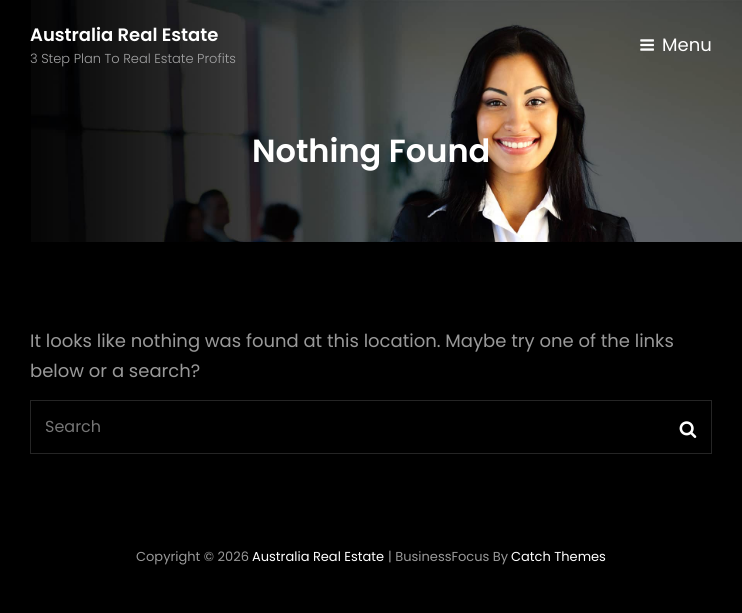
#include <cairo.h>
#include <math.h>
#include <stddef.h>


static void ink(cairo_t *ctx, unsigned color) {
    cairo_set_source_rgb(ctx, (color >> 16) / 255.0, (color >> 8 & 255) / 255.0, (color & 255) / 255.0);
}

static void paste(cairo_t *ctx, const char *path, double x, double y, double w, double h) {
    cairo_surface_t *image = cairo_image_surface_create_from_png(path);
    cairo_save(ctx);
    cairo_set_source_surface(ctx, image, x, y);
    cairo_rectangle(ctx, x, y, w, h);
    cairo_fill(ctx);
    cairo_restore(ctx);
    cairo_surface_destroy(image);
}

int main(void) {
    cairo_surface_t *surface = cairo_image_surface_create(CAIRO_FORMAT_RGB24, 742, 613);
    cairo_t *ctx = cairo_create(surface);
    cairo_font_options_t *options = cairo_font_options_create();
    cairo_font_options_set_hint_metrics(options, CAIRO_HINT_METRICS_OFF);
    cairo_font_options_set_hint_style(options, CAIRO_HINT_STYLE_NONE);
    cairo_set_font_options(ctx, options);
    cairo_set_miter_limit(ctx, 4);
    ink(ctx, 0x000000);
    cairo_paint(ctx);
    paste(ctx, "media/2.png", 31, 0, 711, 242);
    cairo_select_font_face(ctx, "Poppins SemiBold", CAIRO_FONT_SLANT_NORMAL, CAIRO_FONT_WEIGHT_NORMAL);
    cairo_set_font_size(ctx, 18);
    ink(ctx, 0xFFFFFF);
    cairo_move_to(ctx, 30, 41);
    cairo_show_text(ctx, "Australia Real Estate");
    cairo_select_font_face(ctx, "Poppins Light", CAIRO_FONT_SLANT_NORMAL, CAIRO_FONT_WEIGHT_NORMAL);
    cairo_set_font_size(ctx, 13);
    ink(ctx, 0xA3A3A4);
    cairo_move_to(ctx, 30, 63);
    cairo_show_text(ctx, "3 Step Plan To Real Estate Profits");
    paste(ctx, "media/1.png", 640, 39, 14, 12);
    cairo_select_font_face(ctx, "Poppins", CAIRO_FONT_SLANT_NORMAL, CAIRO_FONT_WEIGHT_NORMAL);
    cairo_set_font_size(ctx, 18);
    ink(ctx, 0xFFFFFF);
    cairo_move_to(ctx, 662, 51);
    cairo_show_text(ctx, "Menu");
    cairo_select_font_face(ctx, "Poppins SemiBold", CAIRO_FONT_SLANT_NORMAL, CAIRO_FONT_WEIGHT_NORMAL);
    cairo_set_font_size(ctx, 32);
    cairo_move_to(ctx, 252, 162);
    cairo_show_text(ctx, "Nothing Found");
    cairo_select_font_face(ctx, "Poppins", CAIRO_FONT_SLANT_NORMAL, CAIRO_FONT_WEIGHT_NORMAL);
    cairo_set_font_size(ctx, 18);
    ink(ctx, 0x999999);
    cairo_move_to(ctx, 30, 347);
    cairo_show_text(ctx, "It looks like nothing was found at this location. Maybe try one of the links");
    cairo_move_to(ctx, 30, 377);
    cairo_show_text(ctx, "below or a search?");
    cairo_rectangle(ctx, 30.5, 400.5, 681, 53);
    ink(ctx, 0x252525);
    cairo_set_line_width(ctx, 1);
    cairo_stroke(ctx);
    cairo_set_font_size(ctx, 16);
    ink(ctx, 0x757575);
    cairo_move_to(ctx, 45, 432);
    cairo_show_text(ctx, "Search");
    paste(ctx, "media/3.png", 679, 421, 18, 17);
    cairo_set_font_size(ctx, 13);
    ink(ctx, 0x999999);
    cairo_move_to(ctx, 136, 561);
    cairo_show_text(ctx, "Copyright © 2026");
    ink(ctx, 0xFFFFFF);
    cairo_move_to(ctx, 252, 561);
    cairo_show_text(ctx, "Australia Real Estate");
    ink(ctx, 0x999999);
    cairo_move_to(ctx, 388, 561);
    cairo_show_text(ctx, "| BusinessFocus By");
    ink(ctx, 0xFFFFFF);
    cairo_move_to(ctx, 511, 561);
    cairo_show_text(ctx, "Catch Themes");
    cairo_surface_write_to_png(surface, "image.png");
    cairo_font_options_destroy(options);
    cairo_destroy(ctx);
    cairo_surface_destroy(surface);
    return 0;
}
